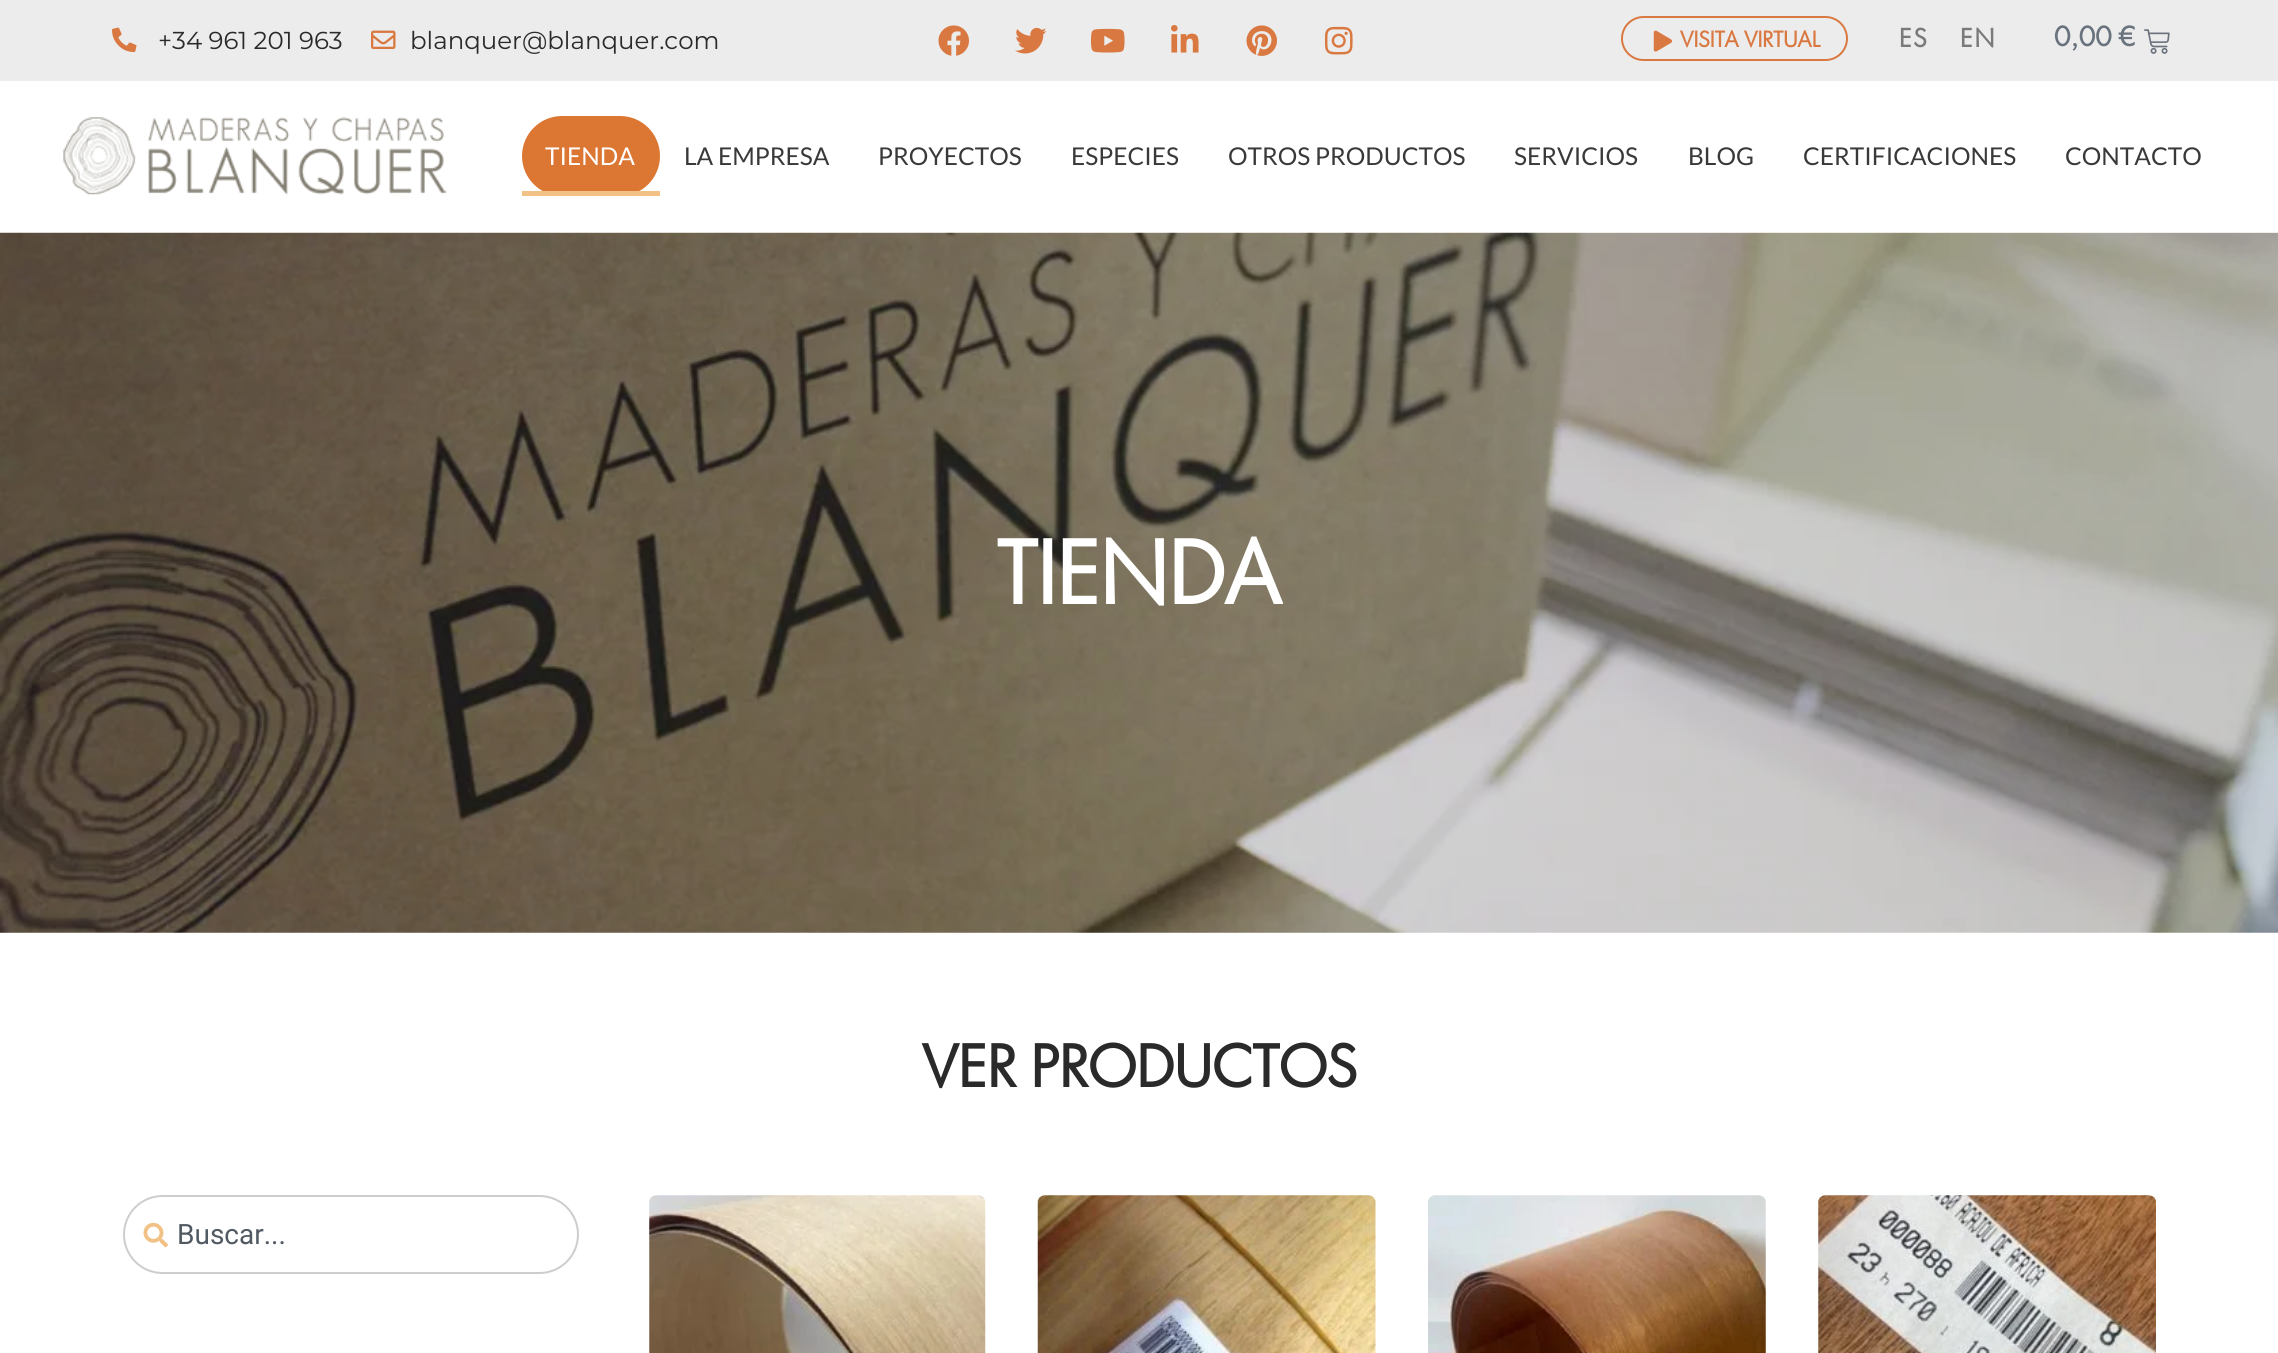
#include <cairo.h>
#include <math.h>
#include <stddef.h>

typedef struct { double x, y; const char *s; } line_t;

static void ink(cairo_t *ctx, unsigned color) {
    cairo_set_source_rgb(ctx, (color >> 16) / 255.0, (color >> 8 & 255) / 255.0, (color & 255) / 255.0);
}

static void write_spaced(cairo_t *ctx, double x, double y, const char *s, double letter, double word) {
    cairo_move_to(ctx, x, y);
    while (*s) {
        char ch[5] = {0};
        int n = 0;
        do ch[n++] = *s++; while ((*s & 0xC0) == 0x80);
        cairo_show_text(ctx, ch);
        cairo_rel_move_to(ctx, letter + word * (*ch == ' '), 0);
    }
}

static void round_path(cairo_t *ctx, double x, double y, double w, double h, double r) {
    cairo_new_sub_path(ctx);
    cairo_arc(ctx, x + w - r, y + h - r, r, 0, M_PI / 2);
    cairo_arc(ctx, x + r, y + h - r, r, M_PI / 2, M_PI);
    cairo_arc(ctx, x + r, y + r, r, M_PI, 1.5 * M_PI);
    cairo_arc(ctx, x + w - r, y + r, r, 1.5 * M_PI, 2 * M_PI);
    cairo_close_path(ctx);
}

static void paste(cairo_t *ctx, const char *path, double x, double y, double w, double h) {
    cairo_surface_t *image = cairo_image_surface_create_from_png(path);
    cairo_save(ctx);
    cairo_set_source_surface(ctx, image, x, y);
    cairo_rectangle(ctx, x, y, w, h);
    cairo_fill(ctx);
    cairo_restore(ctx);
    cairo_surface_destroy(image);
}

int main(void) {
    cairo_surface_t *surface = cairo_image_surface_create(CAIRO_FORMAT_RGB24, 2278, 1353);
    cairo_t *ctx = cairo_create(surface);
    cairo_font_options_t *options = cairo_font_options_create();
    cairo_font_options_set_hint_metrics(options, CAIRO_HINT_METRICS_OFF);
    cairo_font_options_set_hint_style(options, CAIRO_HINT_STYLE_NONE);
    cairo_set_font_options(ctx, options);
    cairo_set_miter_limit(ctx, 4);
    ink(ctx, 0xFFFFFF);
    cairo_paint(ctx);
    ink(ctx, 0xECECEC);
    cairo_rectangle(ctx, 0, 0, 2278, 81);
    cairo_fill(ctx);
    paste(ctx, "media/1.png", 112, 27, 25, 26);
    cairo_select_font_face(ctx, "Montserrat", CAIRO_FONT_SLANT_NORMAL, CAIRO_FONT_WEIGHT_NORMAL);
    cairo_set_font_size(ctx, 24.5);
    ink(ctx, 0x2A2A2A);
    cairo_move_to(ctx, 158, 49);
    cairo_show_text(ctx, "+34 961 201 963");
    paste(ctx, "media/2.png", 371, 30, 25, 19);
    cairo_move_to(ctx, 410, 49);
    cairo_show_text(ctx, "blanquer@blanquer.com");
    paste(ctx, "media/3.png", 938, 25, 31, 31);
    paste(ctx, "media/4.png", 1015, 27, 32, 27);
    paste(ctx, "media/5.png", 1090, 28, 35, 25);
    paste(ctx, "media/6.png", 1171, 25, 28, 28);
    paste(ctx, "media/7.png", 1246, 25, 31, 31);
    paste(ctx, "media/8.png", 1324, 26, 29, 29);
    round_path(ctx, 1622, 17, 225, 43, 21.5);
    ink(ctx, 0xD97941);
    cairo_stroke(ctx);
    paste(ctx, "media/9.png", 1653, 30, 20, 22);
    cairo_select_font_face(ctx, "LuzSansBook", CAIRO_FONT_SLANT_NORMAL, CAIRO_FONT_WEIGHT_BOLD);
    cairo_set_font_size(ctx, 21);
    cairo_move_to(ctx, 1680, 47);
    cairo_show_text(ctx, "VISITA VIRTUAL");
    cairo_set_font_size(ctx, 24.5);
    ink(ctx, 0x7A7A7A);
    write_spaced(ctx, 1899, 47, "ES", 2, 0);
    write_spaced(ctx, 1960, 47, "EN", 2, 0);
    cairo_set_font_size(ctx, 26);
    ink(ctx, 0x69727D);
    cairo_move_to(ctx, 2054, 46);
    cairo_show_text(ctx, "0,00 €");
    paste(ctx, "media/10.png", 2144, 29, 26, 25);
    paste(ctx, "media/11.png", 63, 117, 384, 78);
    ink(ctx, 0xDC7633);
    round_path(ctx, 522, 116, 138, 80, 40);
    cairo_fill(ctx);
    cairo_select_font_face(ctx, "Lato", CAIRO_FONT_SLANT_NORMAL, CAIRO_FONT_WEIGHT_NORMAL);
    cairo_set_font_size(ctx, 24.5);
    ink(ctx, 0xFFFFFF);
    cairo_move_to(ctx, 545, 165);
    cairo_show_text(ctx, "TIENDA");
    ink(ctx, 0xF2C185);
    cairo_rectangle(ctx, 522, 191, 138, 5);
    cairo_fill(ctx);
    ink(ctx, 0x393939);
    {
        static const line_t items[] = {
            {684, 165, "LA EMPRESA"},
            {878, 165, "PROYECTOS"},
            {1071, 165, "ESPECIES"},
            {1228, 165, "OTROS PRODUCTOS"},
            {1514, 165, "SERVICIOS"},
            {1688, 165, "BLOG"},
            {1803, 165, "CERTIFICACIONES"},
            {2065, 165, "CONTACTO"},
        };
        for (size_t i = 0; i < sizeof items / sizeof *items; i++) {
            cairo_move_to(ctx, items[i].x, items[i].y);
            cairo_show_text(ctx, items[i].s);
        }
    }
    paste(ctx, "media/12.png", 0, 232, 2278, 701);
    cairo_select_font_face(ctx, "LuzSansBook", CAIRO_FONT_SLANT_NORMAL, CAIRO_FONT_WEIGHT_BOLD);
    cairo_set_font_size(ctx, 84);
    ink(ctx, 0xFFFFFF);
    cairo_move_to(ctx, 997, 604);
    cairo_show_text(ctx, "TIENDA");
    cairo_set_font_size(ctx, 56);
    ink(ctx, 0x2A2A2A);
    cairo_move_to(ctx, 922, 1087);
    cairo_show_text(ctx, "VER PRODUCTOS");
    round_path(ctx, 124, 1196, 454, 77, 38.5);
    ink(ctx, 0xCDCDCD);
    cairo_stroke(ctx);
    paste(ctx, "media/13.png", 143, 1222, 25, 26);
    cairo_select_font_face(ctx, "Roboto", CAIRO_FONT_SLANT_NORMAL, CAIRO_FONT_WEIGHT_NORMAL);
    cairo_set_font_size(ctx, 28);
    ink(ctx, 0x515962);
    cairo_move_to(ctx, 177, 1244);
    cairo_show_text(ctx, "Buscar...");
    paste(ctx, "media/14.png", 649, 1195, 337, 158);
    paste(ctx, "media/15.png", 1037, 1195, 339, 158);
    paste(ctx, "media/16.png", 1428, 1195, 338, 158);
    paste(ctx, "media/17.png", 1818, 1195, 338, 158);
    cairo_surface_write_to_png(surface, "image.png");
    cairo_font_options_destroy(options);
    cairo_destroy(ctx);
    cairo_surface_destroy(surface);
    return 0;
}
